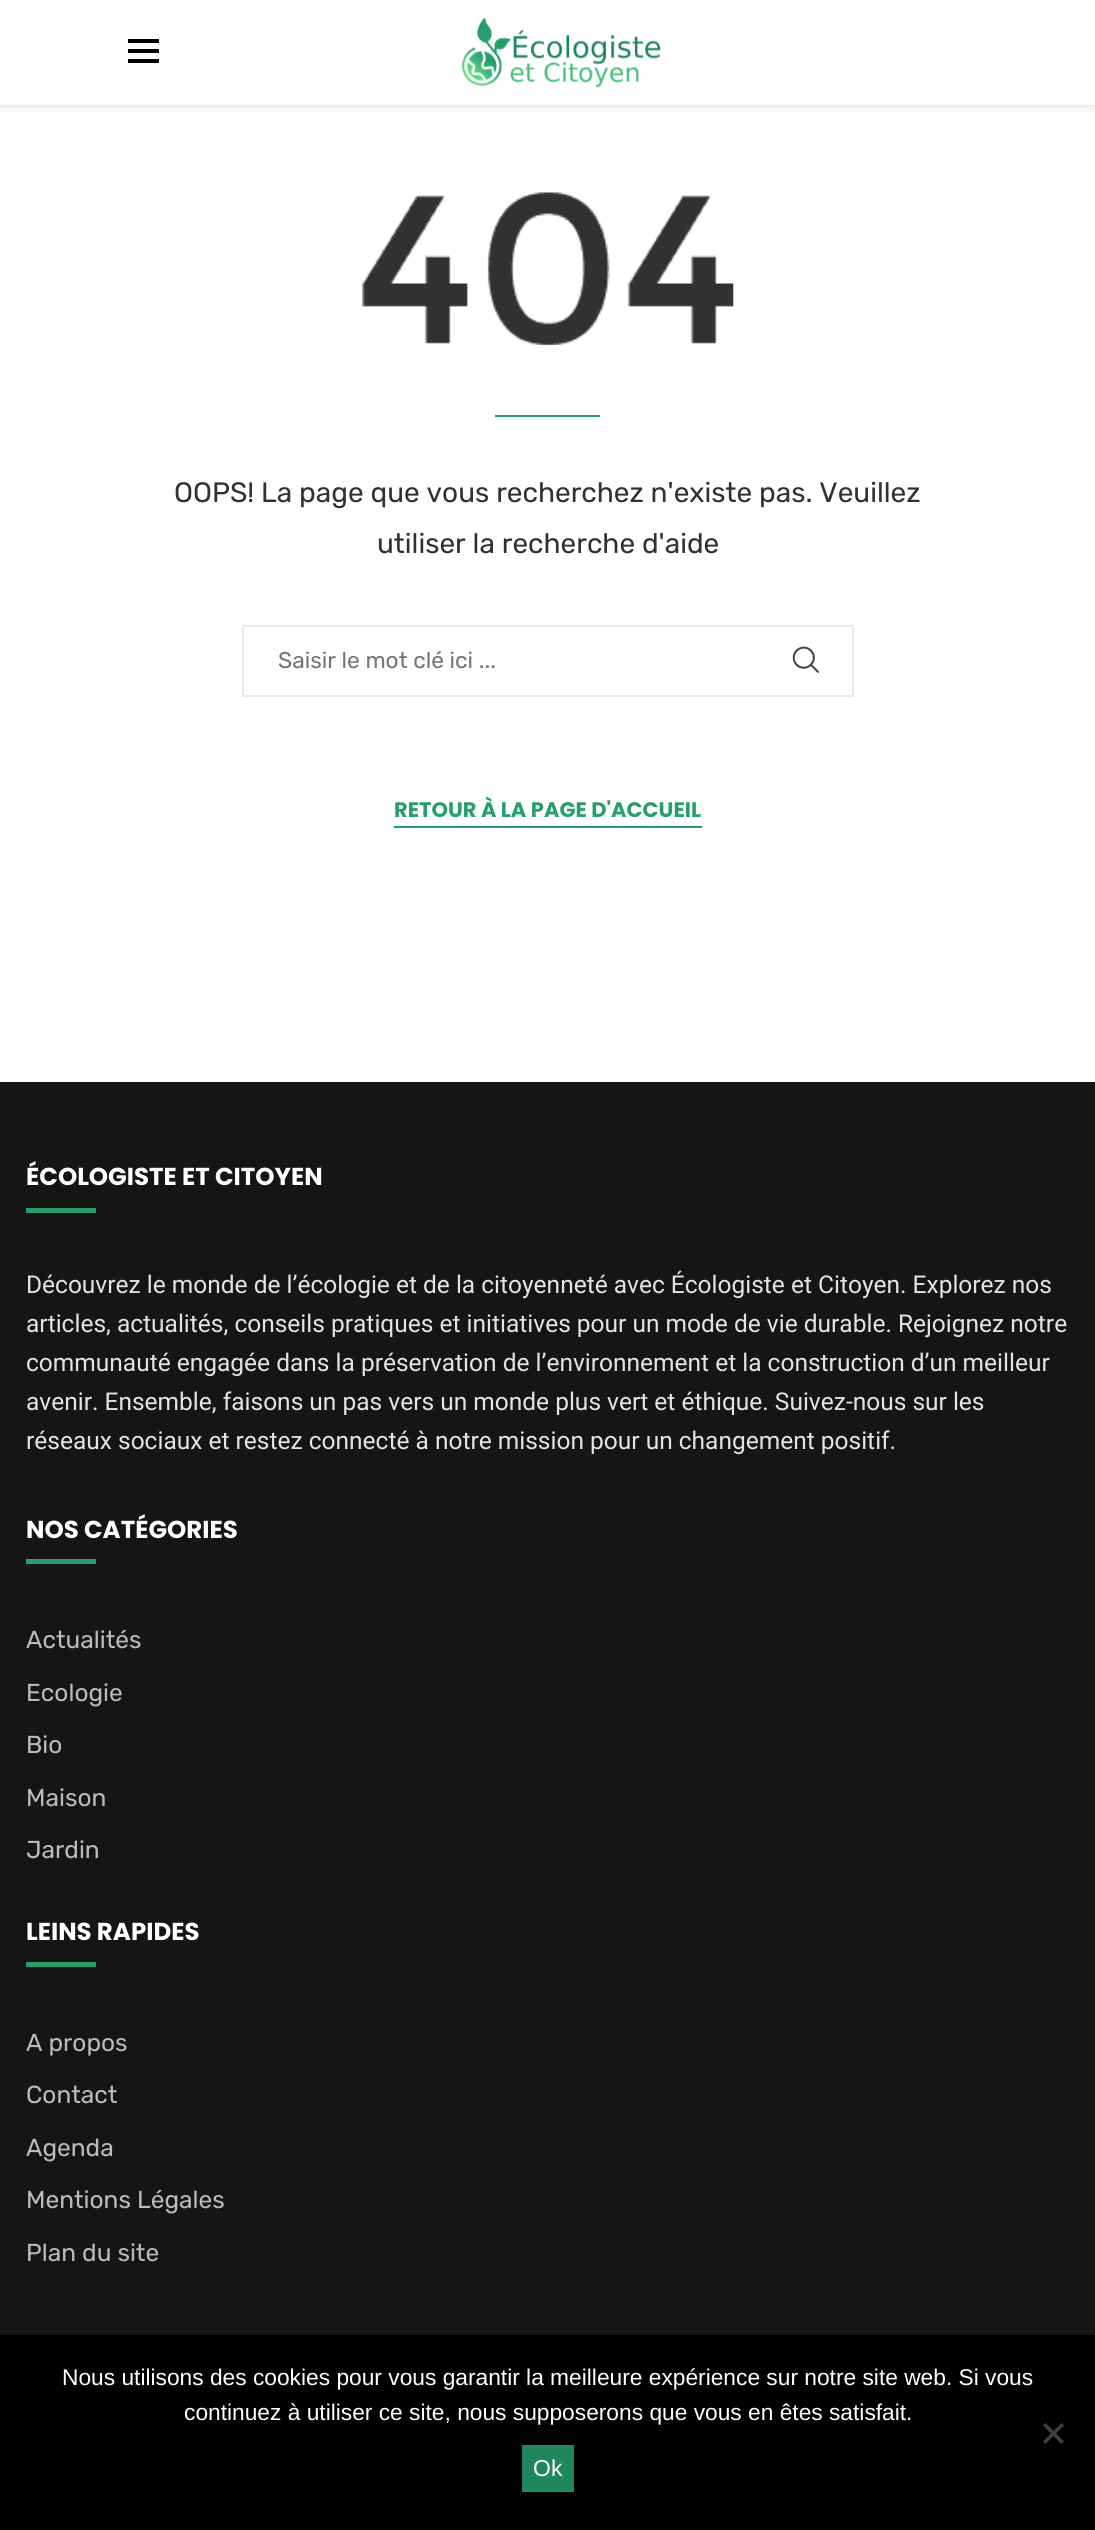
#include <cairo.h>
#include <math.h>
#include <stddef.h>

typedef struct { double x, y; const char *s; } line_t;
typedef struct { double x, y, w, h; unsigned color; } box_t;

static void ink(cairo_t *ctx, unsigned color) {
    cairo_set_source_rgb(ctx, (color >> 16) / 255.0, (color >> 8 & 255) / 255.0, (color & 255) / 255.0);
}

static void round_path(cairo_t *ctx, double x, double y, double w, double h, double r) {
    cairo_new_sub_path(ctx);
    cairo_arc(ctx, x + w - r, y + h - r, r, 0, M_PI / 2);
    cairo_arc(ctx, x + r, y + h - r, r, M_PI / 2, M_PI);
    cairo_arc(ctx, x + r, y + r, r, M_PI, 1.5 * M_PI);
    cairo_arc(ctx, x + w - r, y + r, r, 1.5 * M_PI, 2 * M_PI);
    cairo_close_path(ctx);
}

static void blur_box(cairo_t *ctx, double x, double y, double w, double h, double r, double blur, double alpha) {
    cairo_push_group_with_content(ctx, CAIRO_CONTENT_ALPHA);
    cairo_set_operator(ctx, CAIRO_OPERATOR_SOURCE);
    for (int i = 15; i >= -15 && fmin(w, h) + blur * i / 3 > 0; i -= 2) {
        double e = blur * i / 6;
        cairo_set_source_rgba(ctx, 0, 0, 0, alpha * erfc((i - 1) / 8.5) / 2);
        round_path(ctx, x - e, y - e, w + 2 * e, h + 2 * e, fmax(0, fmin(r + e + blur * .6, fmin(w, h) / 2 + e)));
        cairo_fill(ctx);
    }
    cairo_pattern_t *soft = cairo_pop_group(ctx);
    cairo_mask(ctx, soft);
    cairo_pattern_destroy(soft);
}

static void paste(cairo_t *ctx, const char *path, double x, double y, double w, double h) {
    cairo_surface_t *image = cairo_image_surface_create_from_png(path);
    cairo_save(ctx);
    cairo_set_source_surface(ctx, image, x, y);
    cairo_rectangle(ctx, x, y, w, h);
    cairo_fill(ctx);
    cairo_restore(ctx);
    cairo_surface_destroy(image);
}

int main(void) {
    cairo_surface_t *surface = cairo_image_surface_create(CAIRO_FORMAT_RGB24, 1095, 2530);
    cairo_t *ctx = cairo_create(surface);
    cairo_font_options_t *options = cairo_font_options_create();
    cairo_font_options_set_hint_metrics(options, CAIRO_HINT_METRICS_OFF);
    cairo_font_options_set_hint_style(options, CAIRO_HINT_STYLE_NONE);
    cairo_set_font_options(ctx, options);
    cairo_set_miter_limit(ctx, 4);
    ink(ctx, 0xFFFFFF);
    cairo_paint(ctx);
    cairo_save(ctx);
    cairo_rectangle(ctx, 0, 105, 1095, 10);
    cairo_clip(ctx);
    ink(ctx, 0xBEBEBE);
    blur_box(ctx, 0, 2, 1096, 105, 0, 4.5, 0.46);
    cairo_restore(ctx);
    {
        static const box_t items[] = {
            {128, 39, 31, 4, 0x000000},
            {128, 49, 31, 4, 0x000000},
            {128, 59, 31, 4, 0x000000},
        };
        for (size_t i = 0; i < sizeof items / sizeof *items; i++) {
            ink(ctx, items[i].color);
            cairo_rectangle(ctx, items[i].x, items[i].y, items[i].w, items[i].h);
            cairo_fill(ctx);
        }
    }
    paste(ctx, "media/1.png", 462, 17, 199, 71);
    paste(ctx, "media/2.png", 362, 192, 372, 153);
    ink(ctx, 0x289E6C);
    cairo_rectangle(ctx, 495, 415, 105, 2);
    cairo_fill(ctx);
    cairo_select_font_face(ctx, "Rubik", CAIRO_FONT_SLANT_NORMAL, CAIRO_FONT_WEIGHT_NORMAL);
    cairo_set_font_size(ctx, 28);
    ink(ctx, 0x313131);
    cairo_move_to(ctx, 174, 502);
    cairo_show_text(ctx, "OOPS! La page que vous recherchez n'existe pas. Veuillez");
    cairo_move_to(ctx, 377, 553);
    cairo_show_text(ctx, "utiliser la recherche d'aide");
    cairo_rectangle(ctx, 243, 626, 610, 70);
    ink(ctx, 0xE9E9E9);
    cairo_stroke(ctx);
    cairo_set_font_size(ctx, 22.75);
    ink(ctx, 0x757575);
    cairo_move_to(ctx, 278, 668);
    cairo_show_text(ctx, "Saisir le mot clé ici ...");
    paste(ctx, "media/3.png", 792, 646, 27, 27);
    cairo_select_font_face(ctx, "Poppins", CAIRO_FONT_SLANT_NORMAL, CAIRO_FONT_WEIGHT_BOLD);
    cairo_set_font_size(ctx, 21);
    ink(ctx, 0x289E6C);
    cairo_move_to(ctx, 394, 817);
    cairo_show_text(ctx, "RETOUR À LA PAGE D'ACCUEIL");
    cairo_rectangle(ctx, 394, 826, 308, 2);
    cairo_fill(ctx);
    ink(ctx, 0x151515);
    cairo_rectangle(ctx, 0, 1082, 1095, 1253);
    cairo_fill(ctx);
    cairo_set_font_size(ctx, 24.5);
    ink(ctx, 0xFFFFFF);
    cairo_move_to(ctx, 26, 1185);
    cairo_show_text(ctx, "ÉCOLOGISTE ET CITOYEN");
    ink(ctx, 0x289E6C);
    cairo_rectangle(ctx, 26, 1208, 70, 5);
    cairo_fill(ctx);
    cairo_select_font_face(ctx, "Roboto", CAIRO_FONT_SLANT_NORMAL, CAIRO_FONT_WEIGHT_NORMAL);
    ink(ctx, 0xE4E4E4);
    {
        static const line_t items[] = {
            {26, 1293, "Découvrez le monde de l’écologie et de la citoyenneté avec Écologiste et Citoyen. Explorez nos"},
            {26, 1332, "articles, actualités, conseils pratiques et initiatives pour un mode de vie durable. Rejoignez notre"},
            {26, 1371, "communauté engagée dans la préservation de l’environnement et la construction d’un meilleur"},
            {26, 1410, "avenir. Ensemble, faisons un pas vers un monde plus vert et éthique. Suivez-nous sur les"},
            {26, 1449, "réseaux sociaux et restez connecté à notre mission pour un changement positif."},
        };
        for (size_t i = 0; i < sizeof items / sizeof *items; i++) {
            cairo_move_to(ctx, items[i].x, items[i].y);
            cairo_show_text(ctx, items[i].s);
        }
    }
    cairo_select_font_face(ctx, "Poppins", CAIRO_FONT_SLANT_NORMAL, CAIRO_FONT_WEIGHT_BOLD);
    ink(ctx, 0xFFFFFF);
    cairo_move_to(ctx, 26, 1538);
    cairo_show_text(ctx, "NOS CATÉGORIES");
    ink(ctx, 0x289E6C);
    cairo_rectangle(ctx, 26, 1559, 70, 5);
    cairo_fill(ctx);
    cairo_select_font_face(ctx, "Rubik", CAIRO_FONT_SLANT_NORMAL, CAIRO_FONT_WEIGHT_NORMAL);
    ink(ctx, 0xBBBBBB);
    {
        static const line_t items[] = {
            {26, 1648, "Actualités"},
            {26, 1701, "Ecologie"},
            {26, 1753, "Bio"},
            {26, 1806, "Maison"},
            {26, 1858, "Jardin"},
        };
        for (size_t i = 0; i < sizeof items / sizeof *items; i++) {
            cairo_move_to(ctx, items[i].x, items[i].y);
            cairo_show_text(ctx, items[i].s);
        }
    }
    cairo_select_font_face(ctx, "Poppins", CAIRO_FONT_SLANT_NORMAL, CAIRO_FONT_WEIGHT_BOLD);
    ink(ctx, 0xFFFFFF);
    cairo_move_to(ctx, 26, 1940);
    cairo_show_text(ctx, "LEINS RAPIDES");
    ink(ctx, 0x289E6C);
    cairo_rectangle(ctx, 26, 1962, 70, 5);
    cairo_fill(ctx);
    cairo_select_font_face(ctx, "Rubik", CAIRO_FONT_SLANT_NORMAL, CAIRO_FONT_WEIGHT_NORMAL);
    ink(ctx, 0xBBBBBB);
    {
        static const line_t items[] = {
            {26, 2051, "A propos"},
            {26, 2103, "Contact"},
            {26, 2156, "Agenda"},
            {26, 2208, "Mentions Légales"},
            {26, 2261, "Plan du site"},
        };
        for (size_t i = 0; i < sizeof items / sizeof *items; i++) {
            cairo_move_to(ctx, items[i].x, items[i].y);
            cairo_show_text(ctx, items[i].s);
        }
    }
    ink(ctx, 0x000000);
    cairo_rectangle(ctx, 0, 2335, 1095, 195);
    cairo_fill(ctx);
    cairo_select_font_face(ctx, "Liberation Sans", CAIRO_FONT_SLANT_NORMAL, CAIRO_FONT_WEIGHT_NORMAL);
    cairo_set_font_size(ctx, 22.75);
    ink(ctx, 0xFFFFFF);
    cairo_move_to(ctx, 62, 2385);
    cairo_show_text(ctx, "Nous utilisons des cookies pour vous garantir la meilleure expérience sur notre site web. Si vous");
    cairo_move_to(ctx, 184, 2420);
    cairo_show_text(ctx, "continuez à utiliser ce site, nous supposerons que vous en êtes satisfait.");
    ink(ctx, 0x404040);
    cairo_new_path(ctx);
    cairo_move_to(ctx, 1061.5, 2423);
    cairo_line_to(ctx, 1064, 2425.5);
    cairo_line_to(ctx, 1045.5, 2444);
    cairo_line_to(ctx, 1043, 2441.5);
    cairo_close_path(ctx);
    cairo_fill(ctx);
    cairo_new_path(ctx);
    cairo_move_to(ctx, 1043, 2425.5);
    cairo_line_to(ctx, 1045.5, 2423);
    cairo_line_to(ctx, 1064, 2441.5);
    cairo_line_to(ctx, 1061.5, 2444);
    cairo_close_path(ctx);
    cairo_fill(ctx);
    ink(ctx, 0x1E875F);
    cairo_rectangle(ctx, 522, 2445, 52, 47);
    cairo_fill(ctx);
    cairo_set_font_size(ctx, 23);
    ink(ctx, 0xFFFFFF);
    cairo_move_to(ctx, 533, 2476);
    cairo_show_text(ctx, "Ok");
    cairo_surface_write_to_png(surface, "image.png");
    cairo_font_options_destroy(options);
    cairo_destroy(ctx);
    cairo_surface_destroy(surface);
    return 0;
}
